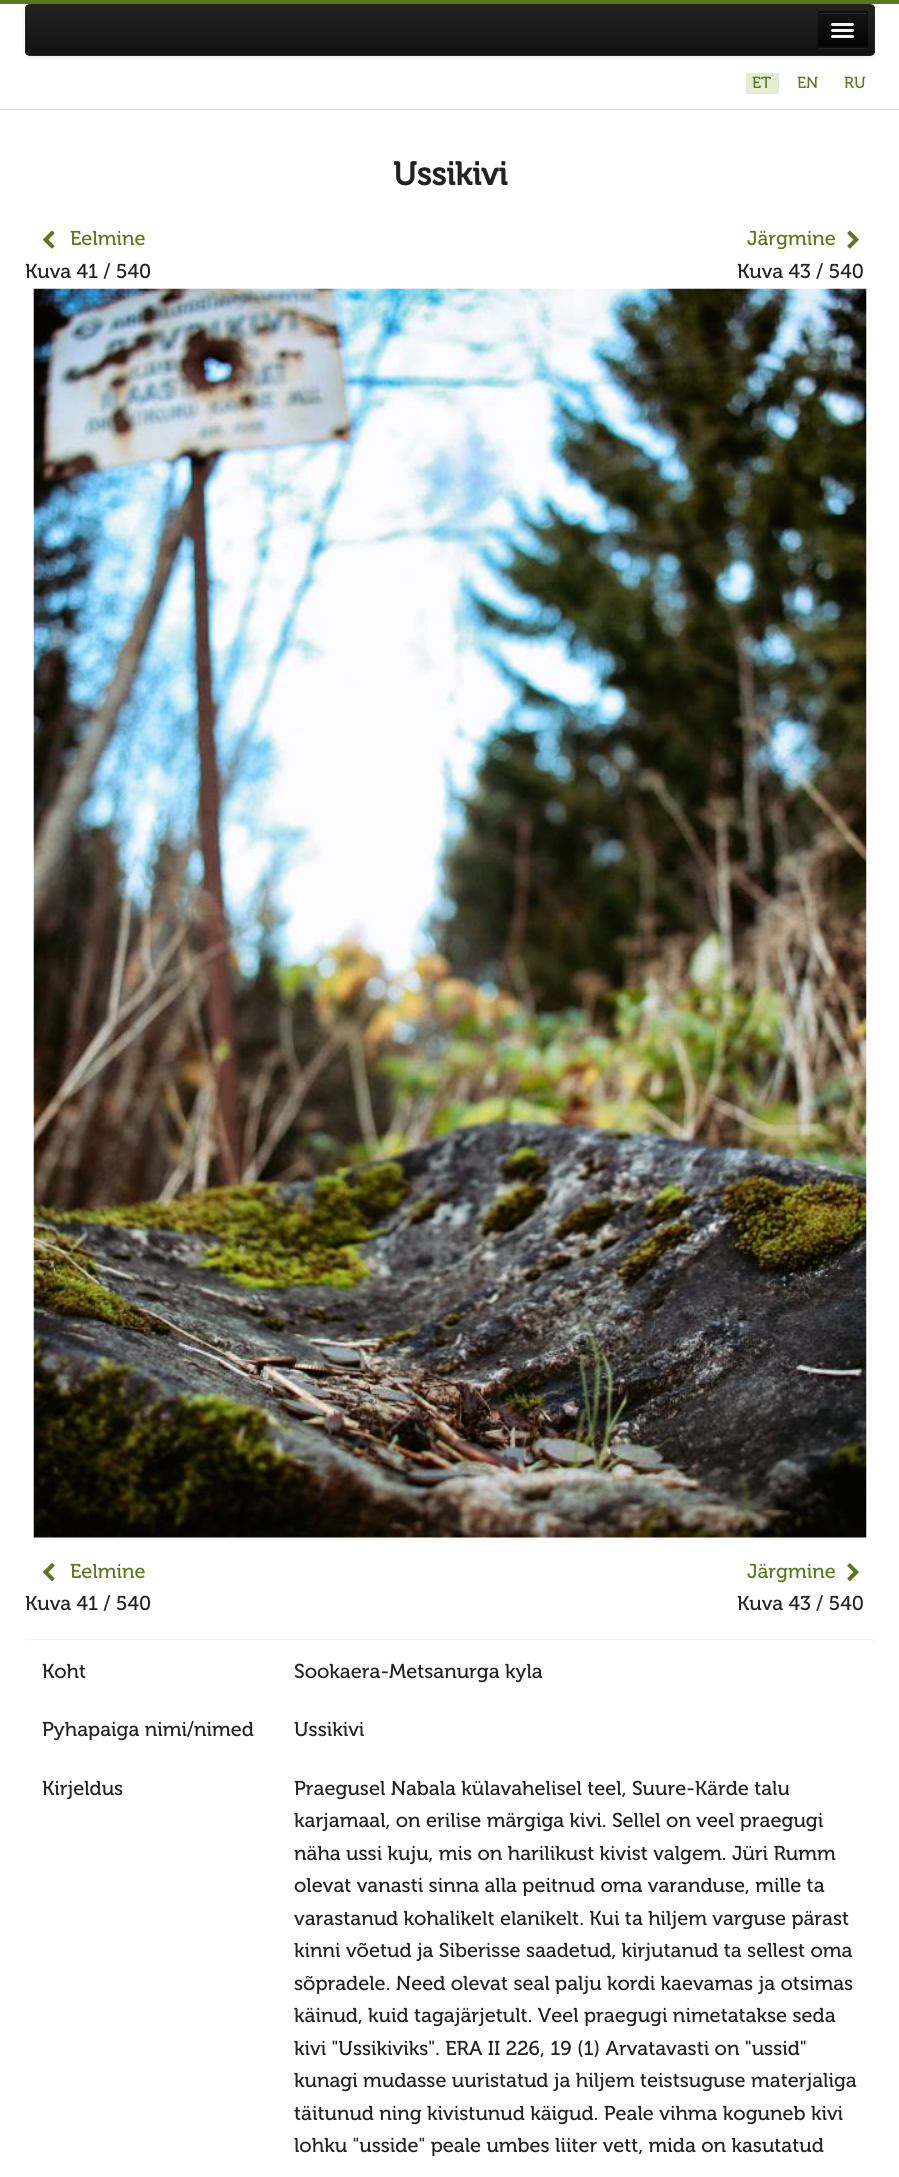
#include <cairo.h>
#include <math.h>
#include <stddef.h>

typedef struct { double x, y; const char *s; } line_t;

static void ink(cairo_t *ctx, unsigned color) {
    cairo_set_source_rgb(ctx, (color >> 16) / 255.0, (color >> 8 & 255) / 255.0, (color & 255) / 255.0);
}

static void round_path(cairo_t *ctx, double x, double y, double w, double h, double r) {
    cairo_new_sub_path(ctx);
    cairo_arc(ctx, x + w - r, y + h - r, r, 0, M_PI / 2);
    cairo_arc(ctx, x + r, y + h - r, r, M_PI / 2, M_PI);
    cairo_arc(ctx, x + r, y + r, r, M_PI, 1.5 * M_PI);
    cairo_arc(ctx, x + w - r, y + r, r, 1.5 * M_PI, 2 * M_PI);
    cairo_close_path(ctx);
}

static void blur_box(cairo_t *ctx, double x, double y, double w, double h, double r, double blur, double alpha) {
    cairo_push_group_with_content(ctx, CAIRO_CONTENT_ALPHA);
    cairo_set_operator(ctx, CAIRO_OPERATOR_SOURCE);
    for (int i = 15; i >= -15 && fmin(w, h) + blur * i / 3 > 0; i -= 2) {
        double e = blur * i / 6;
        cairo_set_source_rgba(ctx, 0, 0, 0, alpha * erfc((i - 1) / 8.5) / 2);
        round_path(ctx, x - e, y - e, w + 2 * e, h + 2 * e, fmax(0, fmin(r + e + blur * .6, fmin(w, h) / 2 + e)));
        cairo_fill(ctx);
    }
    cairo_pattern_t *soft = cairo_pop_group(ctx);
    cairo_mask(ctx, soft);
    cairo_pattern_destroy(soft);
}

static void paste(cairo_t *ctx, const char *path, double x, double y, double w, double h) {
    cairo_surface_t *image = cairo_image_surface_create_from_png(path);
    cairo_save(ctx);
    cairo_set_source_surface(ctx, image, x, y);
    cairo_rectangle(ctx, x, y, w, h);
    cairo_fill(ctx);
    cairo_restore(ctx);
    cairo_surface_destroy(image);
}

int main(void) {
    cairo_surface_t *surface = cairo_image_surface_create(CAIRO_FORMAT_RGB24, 899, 2177);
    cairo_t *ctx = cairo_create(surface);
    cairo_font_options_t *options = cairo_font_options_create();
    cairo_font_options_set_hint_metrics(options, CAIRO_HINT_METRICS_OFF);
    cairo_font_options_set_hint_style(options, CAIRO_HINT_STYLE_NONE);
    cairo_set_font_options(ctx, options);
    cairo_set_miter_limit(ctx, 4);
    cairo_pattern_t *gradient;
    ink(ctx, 0xFFFFFF);
    cairo_paint(ctx);
    ink(ctx, 0x5A791E);
    cairo_rectangle(ctx, 0, 0, 899, 4);
    cairo_fill(ctx);
    ink(ctx, 0x000000);
    blur_box(ctx, 25, 5, 850, 53, 5, 2.5, 0.07);
    cairo_save(ctx);
    round_path(ctx, 25, 4, 850, 52, 5);
    cairo_clip(ctx);
    gradient = cairo_pattern_create_linear(450, 5, 450, 55);
    cairo_pattern_add_color_stop_rgba(gradient, 0, 0.133, 0.133, 0.133, 1);
    cairo_pattern_add_color_stop_rgba(gradient, 1, 0.067, 0.067, 0.067, 1);
    cairo_set_source(ctx, gradient);
    cairo_pattern_destroy(gradient);
    cairo_rectangle(ctx, 25, 5, 850, 50);
    cairo_fill(ctx);
    cairo_restore(ctx);
    round_path(ctx, 25.5, 4.5, 849, 51, 4.5);
    ink(ctx, 0x252525);
    cairo_set_line_width(ctx, 1);
    cairo_stroke(ctx);
    cairo_new_path(ctx);
    cairo_move_to(ctx, 818, 48);
    cairo_line_to(ctx, 818, 49);
    cairo_line_to(ctx, 868, 49);
    cairo_line_to(ctx, 868, 13);
    cairo_line_to(ctx, 868, 48);
    cairo_close_path(ctx);
    cairo_fill(ctx);
    ink(ctx, 0x0E0E0E);
    cairo_rectangle(ctx, 818, 11, 50, 37);
    cairo_fill(ctx);
    gradient = cairo_pattern_create_linear(843, 12, 843, 46);
    cairo_pattern_add_color_stop_rgba(gradient, 0, 0.082, 0.082, 0.082, 1);
    cairo_pattern_add_color_stop_rgba(gradient, 1, 0.016, 0.016, 0.016, 1);
    cairo_set_source(ctx, gradient);
    cairo_pattern_destroy(gradient);
    cairo_rectangle(ctx, 818, 13, 50, 33);
    cairo_fill(ctx);
    ink(ctx, 0x2C2C2C);
    cairo_rectangle(ctx, 819, 13, 47, 1);
    cairo_fill(ctx);
    ink(ctx, 0x0A0A0A);
    cairo_new_path(ctx);
    cairo_move_to(ctx, 868, 48);
    cairo_line_to(ctx, 818, 48);
    cairo_line_to(ctx, 819, 46);
    cairo_line_to(ctx, 866, 46);
    cairo_close_path(ctx);
    cairo_fill(ctx);
    ink(ctx, 0x0B0B0B);
    cairo_new_path(ctx);
    cairo_move_to(ctx, 831.5, 24.5);
    cairo_line_to(ctx, 831, 26);
    cairo_curve_to(ctx, 831.5, 28, 835, 27, 836, 27);
    cairo_line_to(ctx, 849, 27);
    cairo_curve_to(ctx, 850, 27, 853.5, 28, 854, 26);
    cairo_line_to(ctx, 853.5, 24.5);
    cairo_line_to(ctx, 852.5, 25);
    cairo_line_to(ctx, 832.5, 25);
    cairo_close_path(ctx);
    cairo_fill(ctx);
    ink(ctx, 0xF5F5F5);
    round_path(ctx, 831, 23, 23, 3, 1.5);
    cairo_fill(ctx);
    ink(ctx, 0x080808);
    cairo_new_path(ctx);
    cairo_move_to(ctx, 831.5, 30.5);
    cairo_line_to(ctx, 831, 32);
    cairo_curve_to(ctx, 831.5, 34, 835, 33, 836, 33);
    cairo_line_to(ctx, 849, 33);
    cairo_curve_to(ctx, 850, 33, 853.5, 34, 854, 32);
    cairo_line_to(ctx, 853.5, 30.5);
    cairo_curve_to(ctx, 853.5, 31, 853, 31, 852.5, 31);
    cairo_line_to(ctx, 832.5, 31);
    cairo_curve_to(ctx, 832, 31, 831.5, 31, 831.5, 30.5);
    cairo_close_path(ctx);
    cairo_fill(ctx);
    ink(ctx, 0xF5F5F5);
    round_path(ctx, 831, 29, 23, 3, 1.5);
    cairo_fill(ctx);
    round_path(ctx, 831, 35, 23, 3, 1.5);
    cairo_fill(ctx);
    ink(ctx, 0xE4EDD4);
    cairo_rectangle(ctx, 746, 73, 33, 21);
    cairo_fill(ctx);
    cairo_select_font_face(ctx, "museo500", CAIRO_FONT_SLANT_NORMAL, CAIRO_FONT_WEIGHT_NORMAL);
    cairo_set_font_size(ctx, 16);
    ink(ctx, 0x5A791E);
    {
        static const line_t items[] = {
            {752, 88, "ET"},
            {797, 88, "EN"},
            {844, 88, "RU"},
        };
        for (size_t i = 0; i < sizeof items / sizeof *items; i++) {
            cairo_move_to(ctx, items[i].x, items[i].y);
            cairo_show_text(ctx, items[i].s);
        }
    }
    ink(ctx, 0xDDDDDD);
    cairo_rectangle(ctx, 0, 109, 899, 1);
    cairo_fill(ctx);
    cairo_select_font_face(ctx, "museo500", CAIRO_FONT_SLANT_NORMAL, CAIRO_FONT_WEIGHT_BOLD);
    cairo_set_font_size(ctx, 32.5);
    ink(ctx, 0x222222);
    cairo_move_to(ctx, 393, 185);
    cairo_show_text(ctx, "Ussikivi");
    paste(ctx, "media/1.png", 43, 230, 12, 19);
    cairo_select_font_face(ctx, "museo500", CAIRO_FONT_SLANT_NORMAL, CAIRO_FONT_WEIGHT_NORMAL);
    cairo_set_font_size(ctx, 20);
    ink(ctx, 0x5A791E);
    cairo_move_to(ctx, 70, 245);
    cairo_show_text(ctx, "Eelmine");
    ink(ctx, 0x222222);
    cairo_move_to(ctx, 25, 278);
    cairo_show_text(ctx, "Kuva 41 / 540");
    ink(ctx, 0x5A791E);
    cairo_move_to(ctx, 747, 245);
    cairo_show_text(ctx, "Järgmine");
    paste(ctx, "media/2.png", 847, 230, 12, 19);
    ink(ctx, 0x222222);
    cairo_move_to(ctx, 737, 278);
    cairo_show_text(ctx, "Kuva 43 / 540");
    paste(ctx, "media/3.png", 33, 288, 834, 1250);
    paste(ctx, "media/4.png", 43, 1563, 12, 19);
    ink(ctx, 0x5A791E);
    cairo_move_to(ctx, 70, 1578);
    cairo_show_text(ctx, "Eelmine");
    ink(ctx, 0x222222);
    cairo_move_to(ctx, 25, 1610);
    cairo_show_text(ctx, "Kuva 41 / 540");
    ink(ctx, 0x5A791E);
    cairo_move_to(ctx, 747, 1578);
    cairo_show_text(ctx, "Järgmine");
    paste(ctx, "media/5.png", 847, 1563, 12, 19);
    ink(ctx, 0x222222);
    cairo_move_to(ctx, 737, 1610);
    cairo_show_text(ctx, "Kuva 43 / 540");
    ink(ctx, 0xF2F2F2);
    cairo_new_path(ctx);
    cairo_move_to(ctx, 29, 1640);
    cairo_line_to(ctx, 871, 1640);
    cairo_curve_to(ctx, 873, 1640, 875, 1642, 875, 1644);
    cairo_curve_to(ctx, 875, 1641, 874, 1639, 871, 1639);
    cairo_line_to(ctx, 29, 1639);
    cairo_curve_to(ctx, 26, 1639, 25, 1641, 25, 1644);
    cairo_curve_to(ctx, 25, 1642, 27, 1640, 29, 1640);
    cairo_close_path(ctx);
    cairo_fill(ctx);
    ink(ctx, 0x222222);
    {
        static const line_t items[] = {
            {42, 1678, "Koht"},
            {294, 1678, "Sookaera-Metsanurga kyla"},
            {42, 1736, "Pyhapaiga nimi/nimed"},
            {294, 1736, "Ussikivi"},
            {42, 1795, "Kirjeldus"},
            {294, 1795, "Praegusel Nabala külavahelisel teel, Suure-Kärde talu"},
            {294, 1827, "karjamaal, on erilise märgiga kivi. Sellel on veel praegugi"},
            {294, 1860, "näha ussi kuju, mis on harilikust kivist valgem. Jüri Rumm"},
            {294, 1892, "olevat vanasti sinna alla peitnud oma varanduse, mille ta"},
            {294, 1925, "varastanud kohalikelt elanikelt. Kui ta hiljem varguse pärast"},
            {294, 1957, "kinni võetud ja Siberisse saadetud, kirjutanud ta sellest oma"},
            {294, 1990, "sõpradele. Need olevat seal palju kordi kaevamas ja otsimas"},
            {294, 2022, "käinud, kuid tagajärjetult. Veel praegugi nimetatakse seda"},
            {294, 2055, "kivi \"Ussikiviks\". ERA II 226, 19 (1) Arvatavasti on \"ussid\""},
            {294, 2087, "kunagi mudasse uuristatud ja hiljem teistsuguse materjaliga"},
            {294, 2120, "täitunud ning kivistunud käigud. Peale vihma koguneb kivi"},
            {294, 2152, "lohku \"usside\" peale umbes liiter vett, mida on kasutatud"},
        };
        for (size_t i = 0; i < sizeof items / sizeof *items; i++) {
            cairo_move_to(ctx, items[i].x, items[i].y);
            cairo_show_text(ctx, items[i].s);
        }
    }
    cairo_surface_write_to_png(surface, "image.png");
    cairo_font_options_destroy(options);
    cairo_destroy(ctx);
    cairo_surface_destroy(surface);
    return 0;
}
